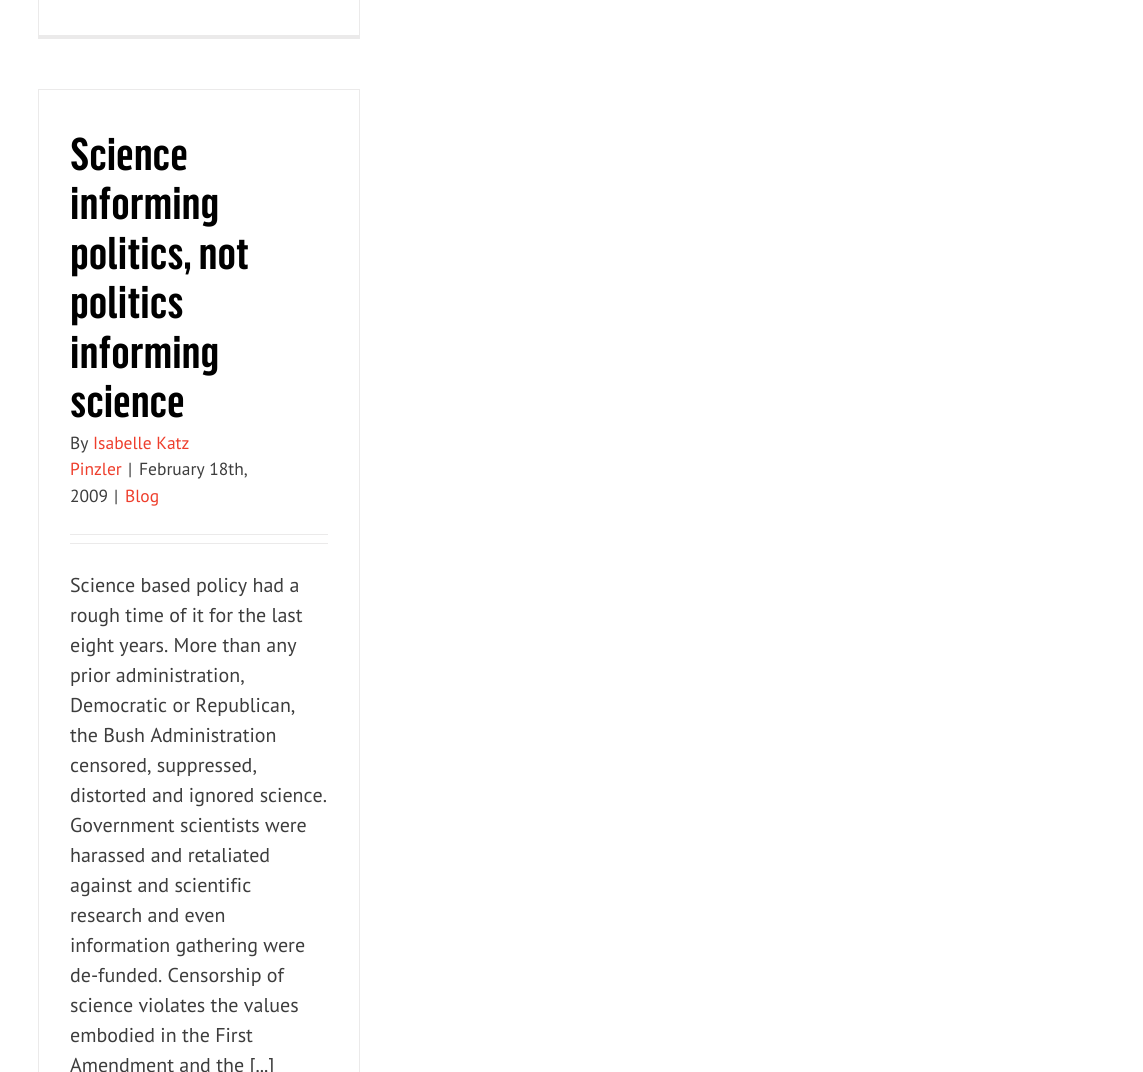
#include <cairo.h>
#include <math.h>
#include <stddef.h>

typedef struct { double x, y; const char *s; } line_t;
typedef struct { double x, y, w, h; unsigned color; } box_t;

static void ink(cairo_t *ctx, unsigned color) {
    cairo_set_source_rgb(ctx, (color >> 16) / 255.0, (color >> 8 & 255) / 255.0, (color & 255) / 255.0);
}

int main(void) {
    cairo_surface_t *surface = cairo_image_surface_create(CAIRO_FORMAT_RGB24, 1143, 1072);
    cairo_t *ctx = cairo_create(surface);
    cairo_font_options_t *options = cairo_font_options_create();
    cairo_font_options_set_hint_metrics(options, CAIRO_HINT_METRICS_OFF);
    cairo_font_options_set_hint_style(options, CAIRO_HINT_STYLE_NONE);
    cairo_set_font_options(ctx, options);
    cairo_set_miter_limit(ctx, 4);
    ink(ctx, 0xFFFFFF);
    cairo_paint(ctx);
    {
        static const box_t items[] = {
            {359, 0, 1, 39, 0xEBEAEA},
            {38, 35, 322, 4, 0xEBEAEA},
            {38, 0, 1, 39, 0xEBEAEA},
            {38, 89, 322, 1, 0xEBEAEA},
            {359, 89, 1, 983, 0xEBEAEA},
            {38, 89, 1, 983, 0xEBEAEA},
        };
        for (size_t i = 0; i < sizeof items / sizeof *items; i++) {
            ink(ctx, items[i].color);
            cairo_rectangle(ctx, items[i].x, items[i].y, items[i].w, items[i].h);
            cairo_fill(ctx);
        }
    }
    cairo_select_font_face(ctx, "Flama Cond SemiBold", CAIRO_FONT_SLANT_NORMAL, CAIRO_FONT_WEIGHT_NORMAL);
    cairo_set_font_size(ctx, 45);
    ink(ctx, 0x000000);
    {
        static const line_t items[] = {
            {70, 170, "Science"},
            {70, 219, "informing"},
            {70, 269, "politics, not"},
            {70, 318, "politics"},
            {70, 368, "informing"},
            {70, 417, "science"},
        };
        for (size_t i = 0; i < sizeof items / sizeof *items; i++) {
            cairo_move_to(ctx, items[i].x, items[i].y);
            cairo_show_text(ctx, items[i].s);
        }
    }
    cairo_select_font_face(ctx, "PT Sans", CAIRO_FONT_SLANT_NORMAL, CAIRO_FONT_WEIGHT_NORMAL);
    cairo_set_font_size(ctx, 17.5);
    ink(ctx, 0x3D3D3D);
    cairo_move_to(ctx, 70, 449);
    cairo_show_text(ctx, "By");
    ink(ctx, 0xEE3E2C);
    cairo_move_to(ctx, 93, 449);
    cairo_show_text(ctx, "Isabelle Katz");
    cairo_move_to(ctx, 70, 475);
    cairo_show_text(ctx, "Pinzler");
    ink(ctx, 0x3D3D3D);
    {
        static const line_t items[] = {
            {128, 475, "|"},
            {139, 475, "February 18th,"},
            {70, 502, "2009"},
            {114, 502, "|"},
        };
        for (size_t i = 0; i < sizeof items / sizeof *items; i++) {
            cairo_move_to(ctx, items[i].x, items[i].y);
            cairo_show_text(ctx, items[i].s);
        }
    }
    ink(ctx, 0xEE3E2C);
    cairo_move_to(ctx, 125, 502);
    cairo_show_text(ctx, "Blog");
    ink(ctx, 0xEBEAEA);
    cairo_rectangle(ctx, 70, 534, 258, 1);
    cairo_fill(ctx);
    cairo_rectangle(ctx, 70, 543, 258, 1);
    cairo_fill(ctx);
    cairo_set_font_size(ctx, 20);
    ink(ctx, 0x3D3D3D);
    {
        static const line_t items[] = {
            {70, 592, "Science based policy had a"},
            {70, 622, "rough time of it for the last"},
            {70, 652, "eight years. More than any"},
            {70, 682, "prior administration,"},
            {70, 712, "Democratic or Republican,"},
            {70, 742, "the Bush Administration"},
            {70, 772, "censored, suppressed,"},
            {70, 802, "distorted and ignored science."},
            {70, 832, "Government scientists were"},
            {70, 862, "harassed and retaliated"},
            {70, 892, "against and scientific"},
            {70, 922, "research and even"},
            {70, 952, "information gathering were"},
            {70, 982, "de-funded. Censorship of"},
            {70, 1012, "science violates the values"},
            {70, 1042, "embodied in the First"},
            {70, 1072, "Amendment and the [...]"},
        };
        for (size_t i = 0; i < sizeof items / sizeof *items; i++) {
            cairo_move_to(ctx, items[i].x, items[i].y);
            cairo_show_text(ctx, items[i].s);
        }
    }
    cairo_surface_write_to_png(surface, "image.png");
    cairo_font_options_destroy(options);
    cairo_destroy(ctx);
    cairo_surface_destroy(surface);
    return 0;
}
